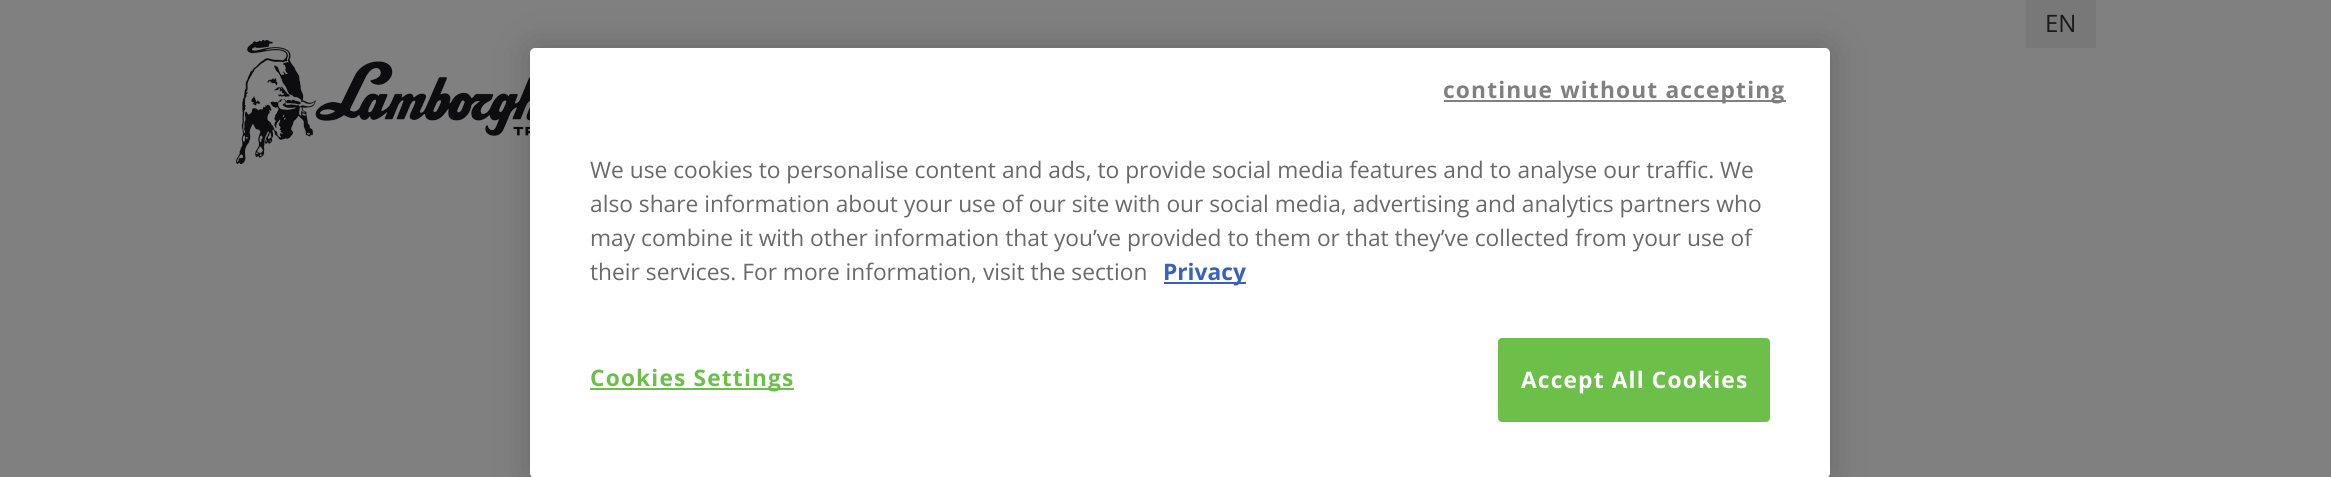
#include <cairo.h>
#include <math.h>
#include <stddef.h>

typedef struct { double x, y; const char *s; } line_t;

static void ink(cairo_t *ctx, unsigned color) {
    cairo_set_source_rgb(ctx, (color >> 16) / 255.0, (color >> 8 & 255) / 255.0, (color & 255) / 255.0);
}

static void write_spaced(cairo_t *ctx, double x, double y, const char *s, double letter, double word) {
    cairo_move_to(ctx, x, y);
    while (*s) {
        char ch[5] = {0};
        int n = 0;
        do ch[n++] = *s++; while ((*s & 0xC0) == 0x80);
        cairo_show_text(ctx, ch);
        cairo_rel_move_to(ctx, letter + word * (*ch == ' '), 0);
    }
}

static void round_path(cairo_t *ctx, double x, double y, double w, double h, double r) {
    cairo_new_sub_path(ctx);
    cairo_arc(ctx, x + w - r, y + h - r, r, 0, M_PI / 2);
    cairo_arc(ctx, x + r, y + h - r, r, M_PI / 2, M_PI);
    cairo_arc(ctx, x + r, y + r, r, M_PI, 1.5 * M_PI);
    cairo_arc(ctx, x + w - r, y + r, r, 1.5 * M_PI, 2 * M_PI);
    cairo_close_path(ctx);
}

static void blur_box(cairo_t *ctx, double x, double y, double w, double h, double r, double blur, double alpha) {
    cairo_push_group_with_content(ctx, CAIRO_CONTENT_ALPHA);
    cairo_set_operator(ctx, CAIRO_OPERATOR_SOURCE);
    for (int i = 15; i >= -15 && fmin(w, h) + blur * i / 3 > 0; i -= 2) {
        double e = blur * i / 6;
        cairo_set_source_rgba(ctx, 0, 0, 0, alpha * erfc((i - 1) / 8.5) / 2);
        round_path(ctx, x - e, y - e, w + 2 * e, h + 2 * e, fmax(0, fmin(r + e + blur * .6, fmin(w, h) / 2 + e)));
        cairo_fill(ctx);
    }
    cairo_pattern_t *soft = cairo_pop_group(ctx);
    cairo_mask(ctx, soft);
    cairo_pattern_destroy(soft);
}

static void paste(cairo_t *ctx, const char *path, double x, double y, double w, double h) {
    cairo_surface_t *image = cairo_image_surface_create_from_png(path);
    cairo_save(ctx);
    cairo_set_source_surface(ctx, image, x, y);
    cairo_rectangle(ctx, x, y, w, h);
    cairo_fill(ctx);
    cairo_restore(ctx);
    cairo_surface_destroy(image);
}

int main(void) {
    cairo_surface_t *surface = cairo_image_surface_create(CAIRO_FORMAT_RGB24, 2331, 477);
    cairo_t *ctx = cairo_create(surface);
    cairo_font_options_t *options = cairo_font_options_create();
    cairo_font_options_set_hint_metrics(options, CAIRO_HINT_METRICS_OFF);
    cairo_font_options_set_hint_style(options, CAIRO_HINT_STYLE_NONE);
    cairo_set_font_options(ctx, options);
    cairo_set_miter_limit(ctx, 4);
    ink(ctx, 0x808080);
    cairo_paint(ctx);
    ink(ctx, 0x787878);
    cairo_rectangle(ctx, 2026, 0, 70, 48);
    cairo_fill(ctx);
    cairo_select_font_face(ctx, "Open Sans", CAIRO_FONT_SLANT_NORMAL, CAIRO_FONT_WEIGHT_NORMAL);
    cairo_set_font_size(ctx, 24);
    ink(ctx, 0x1A1A1A);
    cairo_move_to(ctx, 2045, 32);
    cairo_show_text(ctx, "EN");
    paste(ctx, "media/1.png", 236, 40, 294, 124);
    ink(ctx, 0x000000);
    blur_box(ctx, 530, 48, 1300, 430, 5, 18, 0.2);
    ink(ctx, 0xFFFFFF);
    round_path(ctx, 530, 48, 1300, 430, 5);
    cairo_fill(ctx);
    ink(ctx, 0x6CC04A);
    cairo_rectangle(ctx, 590, 388, 204, 2);
    cairo_fill(ctx);
    cairo_select_font_face(ctx, "Open Sans", CAIRO_FONT_SLANT_NORMAL, CAIRO_FONT_WEIGHT_BOLD);
    cairo_set_font_size(ctx, 22.75);
    write_spaced(ctx, 590, 386, "Cookies Settings", 1.15, 0);
    ink(ctx, 0x808080);
    cairo_rectangle(ctx, 1444, 100, 342, 2);
    cairo_fill(ctx);
    write_spaced(ctx, 1443, 98, "continue without accepting", 1.15, 0);
    ink(ctx, 0x6CC04A);
    round_path(ctx, 1499, 339, 270, 82, 3);
    cairo_fill_preserve(ctx);
    cairo_stroke(ctx);
    ink(ctx, 0xFFFFFF);
    write_spaced(ctx, 1521, 388, "Accept All Cookies", 1.15, 0);
    cairo_select_font_face(ctx, "Open Sans", CAIRO_FONT_SLANT_NORMAL, CAIRO_FONT_WEIGHT_NORMAL);
    ink(ctx, 0x696969);
    {
        static const line_t items[] = {
            {590, 178, "We use cookies to personalise content and ads, to provide social media features and to analyse our traffic. We"},
            {590, 212, "also share information about your use of our site with our social media, advertising and analytics partners who"},
            {590, 246, "may combine it with other information that you’ve provided to them or that they’ve collected from your use of"},
            {590, 280, "their services. For more information, visit the section"},
        };
        for (size_t i = 0; i < sizeof items / sizeof *items; i++) {
            cairo_move_to(ctx, items[i].x, items[i].y);
            cairo_show_text(ctx, items[i].s);
        }
    }
    ink(ctx, 0x3860BE);
    cairo_rectangle(ctx, 1164, 282, 82, 2);
    cairo_fill(ctx);
    cairo_select_font_face(ctx, "Open Sans", CAIRO_FONT_SLANT_NORMAL, CAIRO_FONT_WEIGHT_BOLD);
    cairo_move_to(ctx, 1163, 280);
    cairo_show_text(ctx, "Privacy");
    cairo_surface_write_to_png(surface, "image.png");
    cairo_font_options_destroy(options);
    cairo_destroy(ctx);
    cairo_surface_destroy(surface);
    return 0;
}
